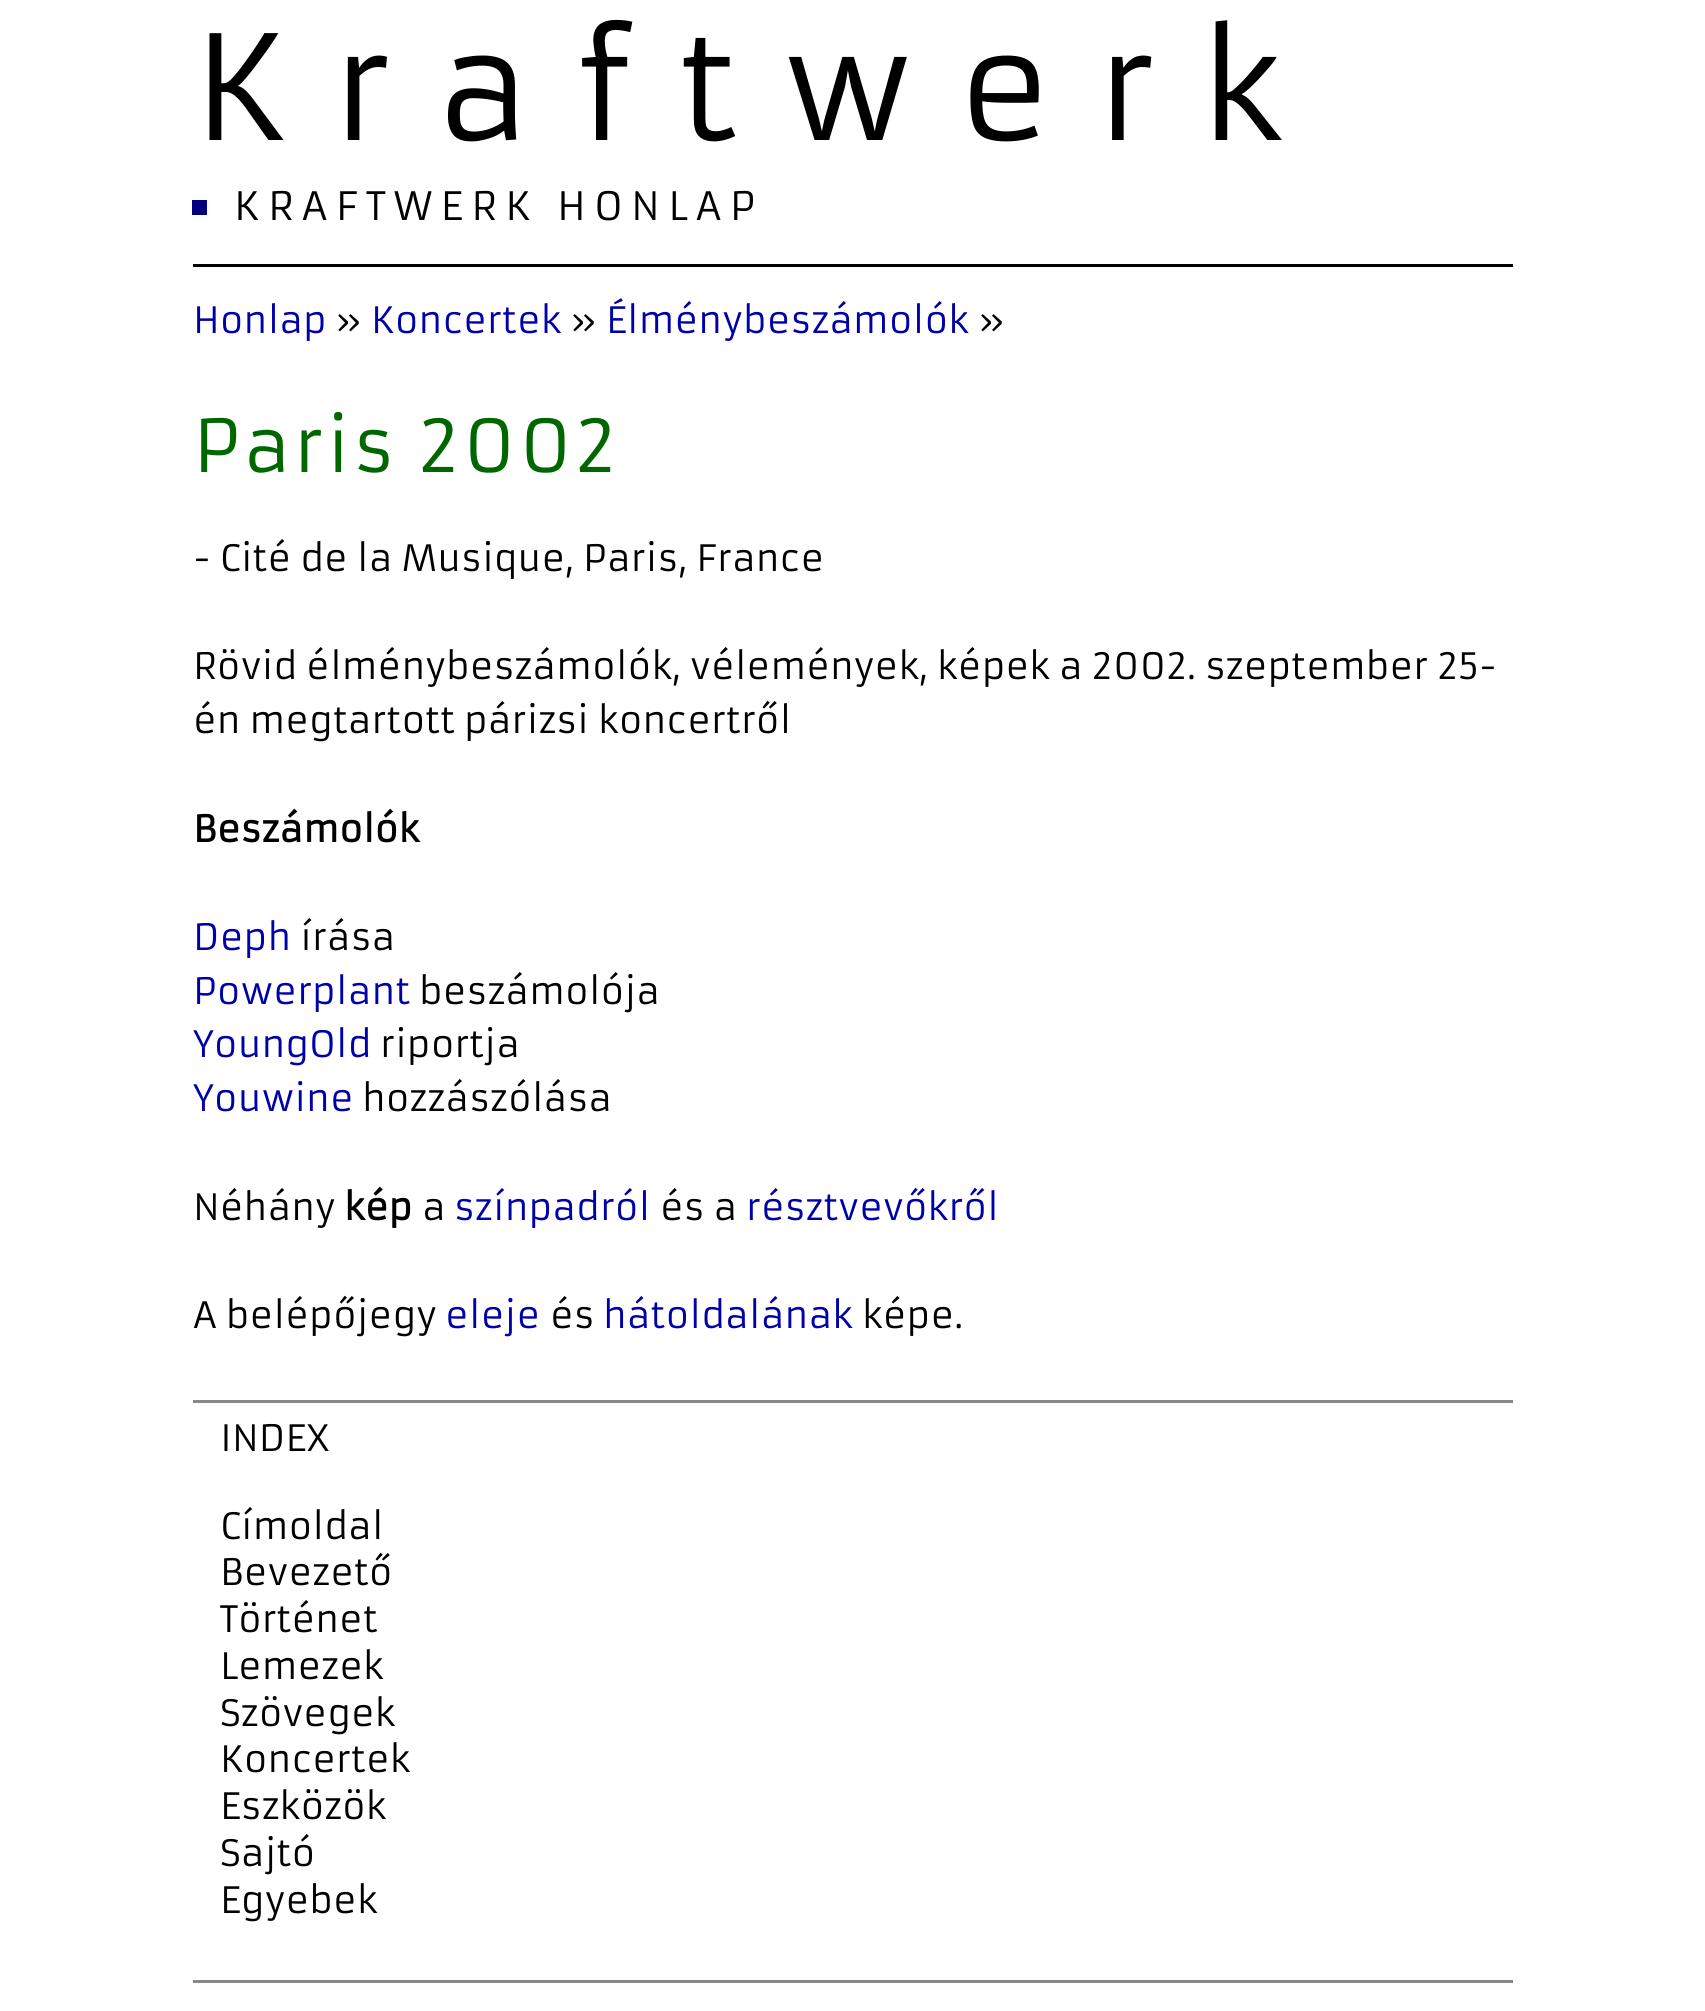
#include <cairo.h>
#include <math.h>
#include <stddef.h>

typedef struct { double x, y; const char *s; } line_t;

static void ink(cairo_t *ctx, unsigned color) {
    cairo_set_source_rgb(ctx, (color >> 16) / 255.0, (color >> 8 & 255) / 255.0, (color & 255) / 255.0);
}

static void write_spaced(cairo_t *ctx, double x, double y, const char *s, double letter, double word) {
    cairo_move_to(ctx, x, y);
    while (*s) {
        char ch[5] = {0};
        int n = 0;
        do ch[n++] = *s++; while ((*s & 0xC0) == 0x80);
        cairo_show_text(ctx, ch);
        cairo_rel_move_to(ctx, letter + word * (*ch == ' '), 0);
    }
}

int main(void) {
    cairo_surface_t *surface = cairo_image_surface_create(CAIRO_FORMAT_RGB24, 1705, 2011);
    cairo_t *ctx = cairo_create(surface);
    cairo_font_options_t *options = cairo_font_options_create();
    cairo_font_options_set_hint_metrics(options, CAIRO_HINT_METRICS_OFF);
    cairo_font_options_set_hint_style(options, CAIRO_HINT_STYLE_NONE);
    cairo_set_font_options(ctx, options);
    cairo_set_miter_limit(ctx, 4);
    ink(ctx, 0xFFFFFF);
    cairo_paint(ctx);
    cairo_select_font_face(ctx, "Armata", CAIRO_FONT_SLANT_NORMAL, CAIRO_FONT_WEIGHT_NORMAL);
    cairo_set_font_size(ctx, 143);
    ink(ctx, 0x000000);
    write_spaced(ctx, 193, 140, "Kraftwerk", 44, 0);
    cairo_rectangle(ctx, 193, 264, 1320, 3);
    cairo_fill(ctx);
    cairo_set_font_size(ctx, 38.5);
    write_spaced(ctx, 234, 220, "KRAFTWERK HONLAP", 8.25, 0);
    ink(ctx, 0x00007F);
    cairo_rectangle(ctx, 192, 200, 15, 15);
    cairo_fill(ctx);
    cairo_set_font_size(ctx, 35.75);
    ink(ctx, 0x0000AA);
    cairo_move_to(ctx, 193, 333);
    cairo_show_text(ctx, "Honlap");
    ink(ctx, 0x000000);
    cairo_move_to(ctx, 335, 333);
    cairo_show_text(ctx, "»");
    ink(ctx, 0x0000AA);
    cairo_move_to(ctx, 371, 333);
    cairo_show_text(ctx, "Koncertek");
    ink(ctx, 0x000000);
    cairo_move_to(ctx, 570, 333);
    cairo_show_text(ctx, "»");
    ink(ctx, 0x0000AA);
    cairo_move_to(ctx, 606, 333);
    cairo_show_text(ctx, "Élménybeszámolók");
    ink(ctx, 0x000000);
    cairo_move_to(ctx, 978, 333);
    cairo_show_text(ctx, "»");
    cairo_set_font_size(ctx, 71.5);
    ink(ctx, 0x006600);
    write_spaced(ctx, 193, 472, "Paris 2002", 2.75, 0);
    cairo_set_font_size(ctx, 35.75);
    ink(ctx, 0x000000);
    {
        static const line_t items[] = {
            {193, 571, "- Cité de la Musique, Paris, France"},
            {193, 679, "Rövid élménybeszámolók, vélemények, képek a 2002. szeptember 25-"},
            {193, 733, "én megtartott párizsi koncertről"},
        };
        for (size_t i = 0; i < sizeof items / sizeof *items; i++) {
            cairo_move_to(ctx, items[i].x, items[i].y);
            cairo_show_text(ctx, items[i].s);
        }
    }
    cairo_select_font_face(ctx, "Armata", CAIRO_FONT_SLANT_NORMAL, CAIRO_FONT_WEIGHT_BOLD);
    cairo_move_to(ctx, 193, 842);
    cairo_show_text(ctx, "Beszámolók");
    cairo_select_font_face(ctx, "Armata", CAIRO_FONT_SLANT_NORMAL, CAIRO_FONT_WEIGHT_NORMAL);
    ink(ctx, 0x0000AA);
    cairo_move_to(ctx, 193, 950);
    cairo_show_text(ctx, "Deph");
    ink(ctx, 0x000000);
    cairo_move_to(ctx, 300, 950);
    cairo_show_text(ctx, "írása");
    ink(ctx, 0x0000AA);
    cairo_move_to(ctx, 193, 1004);
    cairo_show_text(ctx, "Powerplant");
    ink(ctx, 0x000000);
    cairo_move_to(ctx, 419, 1004);
    cairo_show_text(ctx, "beszámolója");
    ink(ctx, 0x0000AA);
    cairo_move_to(ctx, 193, 1057);
    cairo_show_text(ctx, "YoungOld");
    ink(ctx, 0x000000);
    cairo_move_to(ctx, 380, 1057);
    cairo_show_text(ctx, "riportja");
    ink(ctx, 0x0000AA);
    cairo_move_to(ctx, 193, 1111);
    cairo_show_text(ctx, "Youwine");
    ink(ctx, 0x000000);
    cairo_move_to(ctx, 362, 1111);
    cairo_show_text(ctx, "hozzászólása");
    cairo_move_to(ctx, 193, 1220);
    cairo_show_text(ctx, "Néhány");
    cairo_select_font_face(ctx, "Armata", CAIRO_FONT_SLANT_NORMAL, CAIRO_FONT_WEIGHT_BOLD);
    cairo_move_to(ctx, 344, 1220);
    cairo_show_text(ctx, "kép");
    cairo_select_font_face(ctx, "Armata", CAIRO_FONT_SLANT_NORMAL, CAIRO_FONT_WEIGHT_NORMAL);
    cairo_move_to(ctx, 422, 1220);
    cairo_show_text(ctx, "a");
    ink(ctx, 0x0000AA);
    cairo_move_to(ctx, 454, 1220);
    cairo_show_text(ctx, "színpadról");
    ink(ctx, 0x000000);
    cairo_move_to(ctx, 660, 1220);
    cairo_show_text(ctx, "és a");
    ink(ctx, 0x0000AA);
    cairo_move_to(ctx, 746, 1220);
    cairo_show_text(ctx, "résztvevőkről");
    ink(ctx, 0x000000);
    cairo_move_to(ctx, 193, 1328);
    cairo_show_text(ctx, "A belépőjegy");
    ink(ctx, 0x0000AA);
    cairo_move_to(ctx, 445, 1328);
    cairo_show_text(ctx, "eleje");
    ink(ctx, 0x000000);
    cairo_move_to(ctx, 550, 1328);
    cairo_show_text(ctx, "és");
    ink(ctx, 0x0000AA);
    cairo_move_to(ctx, 603, 1328);
    cairo_show_text(ctx, "hátoldalának");
    ink(ctx, 0x000000);
    cairo_move_to(ctx, 862, 1328);
    cairo_show_text(ctx, "képe.");
    ink(ctx, 0x888888);
    cairo_rectangle(ctx, 193, 1400, 1320, 3);
    cairo_fill(ctx);
    cairo_rectangle(ctx, 193, 1980, 1320, 3);
    cairo_fill(ctx);
    ink(ctx, 0x000000);
    {
        static const line_t items[] = {
            {220, 1451, "INDEX"},
            {220, 1539, "Címoldal"},
            {220, 1585, "Bevezető"},
            {220, 1632, "Történet"},
            {220, 1679, "Lemezek"},
            {220, 1726, "Szövegek"},
            {220, 1772, "Koncertek"},
            {220, 1819, "Eszközök"},
            {220, 1866, "Sajtó"},
            {220, 1913, "Egyebek"},
        };
        for (size_t i = 0; i < sizeof items / sizeof *items; i++) {
            cairo_move_to(ctx, items[i].x, items[i].y);
            cairo_show_text(ctx, items[i].s);
        }
    }
    cairo_surface_write_to_png(surface, "image.png");
    cairo_font_options_destroy(options);
    cairo_destroy(ctx);
    cairo_surface_destroy(surface);
    return 0;
}
